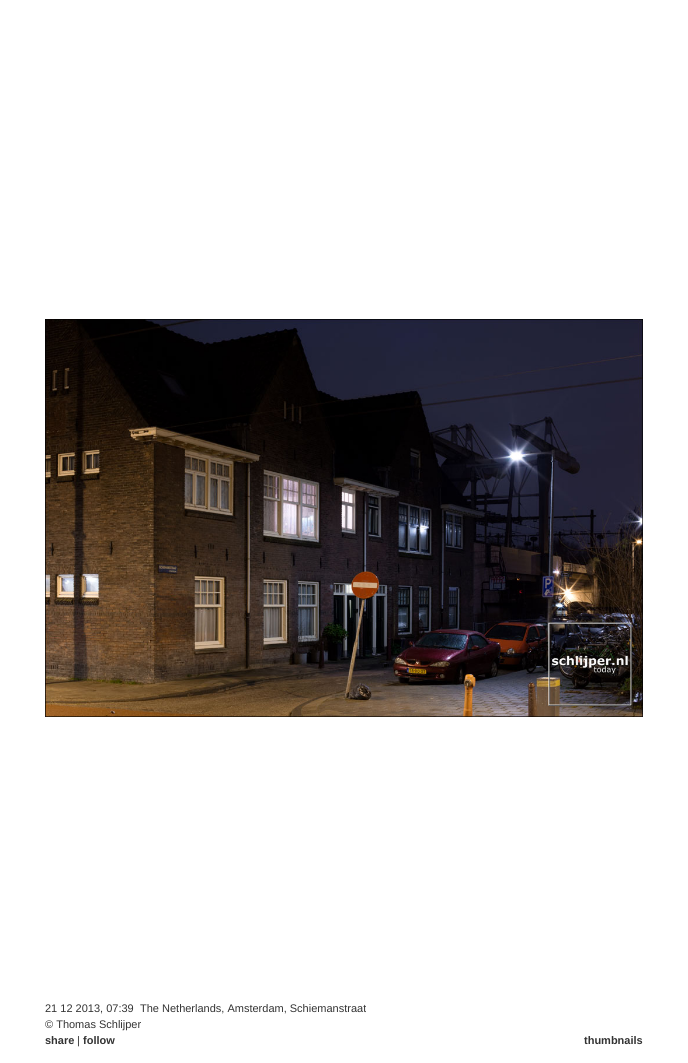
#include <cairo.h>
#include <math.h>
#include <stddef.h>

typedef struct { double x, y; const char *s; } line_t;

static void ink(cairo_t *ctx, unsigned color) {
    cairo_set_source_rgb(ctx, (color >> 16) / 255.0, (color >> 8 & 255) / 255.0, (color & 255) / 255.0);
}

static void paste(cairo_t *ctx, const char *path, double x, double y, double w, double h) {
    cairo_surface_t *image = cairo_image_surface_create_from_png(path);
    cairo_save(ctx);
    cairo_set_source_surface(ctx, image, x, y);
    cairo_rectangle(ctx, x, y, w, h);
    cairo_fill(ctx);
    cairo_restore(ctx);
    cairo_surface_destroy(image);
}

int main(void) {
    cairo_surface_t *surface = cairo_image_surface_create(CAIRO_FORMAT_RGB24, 688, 1063);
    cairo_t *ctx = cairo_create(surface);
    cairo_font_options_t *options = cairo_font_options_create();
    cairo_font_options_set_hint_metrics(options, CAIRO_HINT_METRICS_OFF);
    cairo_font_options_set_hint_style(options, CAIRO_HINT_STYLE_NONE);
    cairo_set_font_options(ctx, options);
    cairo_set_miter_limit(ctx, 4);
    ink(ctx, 0xFFFFFF);
    cairo_paint(ctx);
    paste(ctx, "media/1.png", 45, 319, 598, 398);
    cairo_select_font_face(ctx, "Liberation Sans", CAIRO_FONT_SLANT_NORMAL, CAIRO_FONT_WEIGHT_NORMAL);
    cairo_set_font_size(ctx, 11);
    ink(ctx, 0x333333);
    {
        static const line_t items[] = {
            {45, 1012, "21 12 2013, 07:39"},
            {140, 1012, "The Netherlands, Amsterdam, Schiemanstraat"},
            {45, 1028, "© Thomas Schlijper"},
        };
        for (size_t i = 0; i < sizeof items / sizeof *items; i++) {
            cairo_move_to(ctx, items[i].x, items[i].y);
            cairo_show_text(ctx, items[i].s);
        }
    }
    cairo_select_font_face(ctx, "Liberation Sans", CAIRO_FONT_SLANT_NORMAL, CAIRO_FONT_WEIGHT_BOLD);
    cairo_move_to(ctx, 45, 1044);
    cairo_show_text(ctx, "share");
    cairo_select_font_face(ctx, "Liberation Sans", CAIRO_FONT_SLANT_NORMAL, CAIRO_FONT_WEIGHT_NORMAL);
    cairo_move_to(ctx, 77, 1044);
    cairo_show_text(ctx, "|");
    cairo_select_font_face(ctx, "Liberation Sans", CAIRO_FONT_SLANT_NORMAL, CAIRO_FONT_WEIGHT_BOLD);
    cairo_move_to(ctx, 83, 1044);
    cairo_show_text(ctx, "follow");
    cairo_move_to(ctx, 584, 1044);
    cairo_show_text(ctx, "thumbnails");
    cairo_surface_write_to_png(surface, "image.png");
    cairo_font_options_destroy(options);
    cairo_destroy(ctx);
    cairo_surface_destroy(surface);
    return 0;
}
